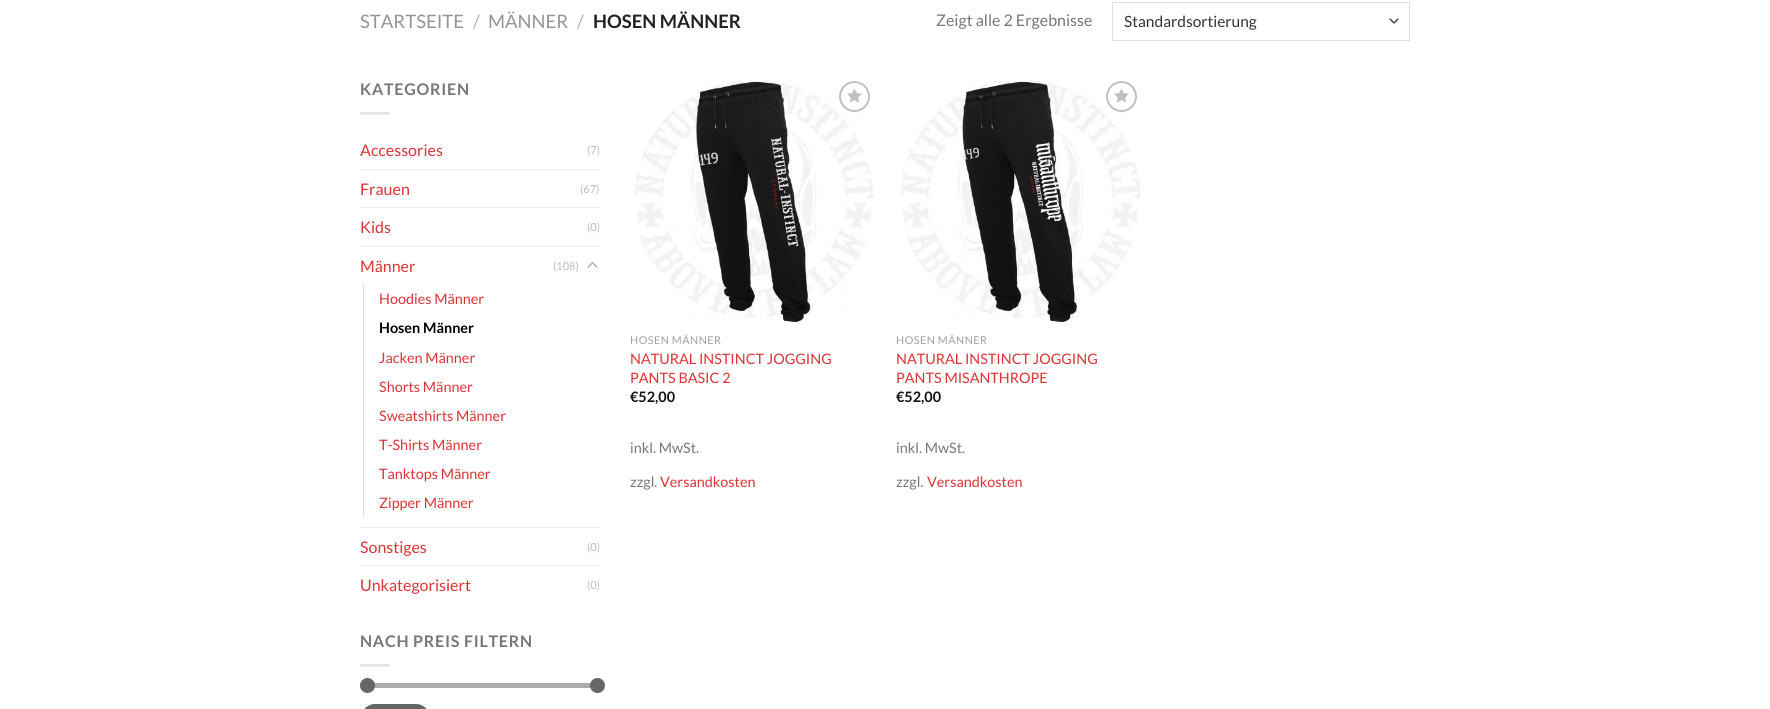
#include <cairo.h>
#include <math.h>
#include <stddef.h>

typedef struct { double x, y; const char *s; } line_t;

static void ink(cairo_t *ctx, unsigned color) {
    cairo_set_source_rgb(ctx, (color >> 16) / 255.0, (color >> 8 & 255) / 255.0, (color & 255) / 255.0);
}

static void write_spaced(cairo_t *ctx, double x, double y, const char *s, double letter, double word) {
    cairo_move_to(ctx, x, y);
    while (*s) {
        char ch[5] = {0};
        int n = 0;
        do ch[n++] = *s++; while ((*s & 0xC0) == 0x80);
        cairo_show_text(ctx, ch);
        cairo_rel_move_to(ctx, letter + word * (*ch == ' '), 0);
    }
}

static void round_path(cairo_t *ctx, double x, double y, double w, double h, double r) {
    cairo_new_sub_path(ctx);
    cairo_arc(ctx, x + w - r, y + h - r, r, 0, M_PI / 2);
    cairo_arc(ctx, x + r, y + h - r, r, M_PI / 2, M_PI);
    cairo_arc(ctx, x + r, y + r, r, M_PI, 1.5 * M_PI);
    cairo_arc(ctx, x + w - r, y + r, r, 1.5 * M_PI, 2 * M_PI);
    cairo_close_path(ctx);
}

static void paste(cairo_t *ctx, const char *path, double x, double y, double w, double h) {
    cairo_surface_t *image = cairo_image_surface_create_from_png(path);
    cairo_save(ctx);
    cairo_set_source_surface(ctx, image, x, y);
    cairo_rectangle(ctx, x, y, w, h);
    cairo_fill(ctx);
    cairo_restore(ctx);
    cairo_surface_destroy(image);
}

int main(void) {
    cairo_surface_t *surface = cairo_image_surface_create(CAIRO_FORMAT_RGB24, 1770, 709);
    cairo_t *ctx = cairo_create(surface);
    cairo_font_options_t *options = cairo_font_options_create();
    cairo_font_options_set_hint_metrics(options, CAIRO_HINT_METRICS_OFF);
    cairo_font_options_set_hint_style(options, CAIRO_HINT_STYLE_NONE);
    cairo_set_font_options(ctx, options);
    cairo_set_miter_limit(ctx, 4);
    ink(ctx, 0xFFFFFF);
    cairo_paint(ctx);
    cairo_select_font_face(ctx, "Lato", CAIRO_FONT_SLANT_NORMAL, CAIRO_FONT_WEIGHT_NORMAL);
    cairo_set_font_size(ctx, 18.5);
    ink(ctx, 0x949494);
    cairo_move_to(ctx, 360, 28);
    cairo_show_text(ctx, "STARTSEITE");
    ink(ctx, 0xB2B2B2);
    cairo_move_to(ctx, 473, 28);
    cairo_show_text(ctx, "/");
    ink(ctx, 0x949494);
    cairo_move_to(ctx, 488, 28);
    cairo_show_text(ctx, "MÄNNER");
    ink(ctx, 0xB2B2B2);
    cairo_move_to(ctx, 577, 28);
    cairo_show_text(ctx, "/");
    cairo_select_font_face(ctx, "Lato", CAIRO_FONT_SLANT_NORMAL, CAIRO_FONT_WEIGHT_BOLD);
    ink(ctx, 0x222222);
    cairo_move_to(ctx, 593, 28);
    cairo_show_text(ctx, "HOSEN MÄNNER");
    cairo_select_font_face(ctx, "Lato", CAIRO_FONT_SLANT_NORMAL, CAIRO_FONT_WEIGHT_NORMAL);
    cairo_set_font_size(ctx, 16);
    ink(ctx, 0x777777);
    cairo_move_to(ctx, 936, 26);
    cairo_show_text(ctx, "Zeigt alle 2 Ergebnisse");
    cairo_new_path(ctx);
    cairo_move_to(ctx, 1390, 19);
    cairo_line_to(ctx, 1394, 23);
    cairo_line_to(ctx, 1398, 19);
    ink(ctx, 0x333333);
    cairo_set_line_width(ctx, 1.3);
    cairo_set_line_cap(ctx, CAIRO_LINE_CAP_ROUND);
    cairo_set_line_join(ctx, CAIRO_LINE_JOIN_ROUND);
    cairo_stroke(ctx);
    cairo_rectangle(ctx, 1112.5, 2.5, 297, 38);
    ink(ctx, 0xDDDDDD);
    cairo_set_line_width(ctx, 1);
    cairo_set_line_cap(ctx, CAIRO_LINE_CAP_BUTT);
    cairo_set_line_join(ctx, CAIRO_LINE_JOIN_MITER);
    cairo_stroke(ctx);
    cairo_set_font_size(ctx, 15.5);
    ink(ctx, 0x333333);
    cairo_move_to(ctx, 1124, 27);
    cairo_show_text(ctx, "Standardsortierung");
    cairo_select_font_face(ctx, "Lato", CAIRO_FONT_SLANT_NORMAL, CAIRO_FONT_WEIGHT_BOLD);
    cairo_set_font_size(ctx, 16);
    ink(ctx, 0x777777);
    write_spaced(ctx, 360, 95, "KATEGORIEN", 0.75, 0);
    ink(ctx, 0xE6E6E6);
    cairo_rectangle(ctx, 360, 112, 30, 3);
    cairo_fill(ctx);
    cairo_select_font_face(ctx, "Lato", CAIRO_FONT_SLANT_NORMAL, CAIRO_FONT_WEIGHT_NORMAL);
    ink(ctx, 0xDD3333);
    cairo_move_to(ctx, 360, 156);
    cairo_show_text(ctx, "Accessories");
    cairo_set_font_size(ctx, 11);
    ink(ctx, 0xBBBBBB);
    cairo_move_to(ctx, 587, 154);
    cairo_show_text(ctx, "(7)");
    ink(ctx, 0xECECEC);
    cairo_rectangle(ctx, 360, 169, 240, 1);
    cairo_fill(ctx);
    cairo_set_font_size(ctx, 16);
    ink(ctx, 0xDD3333);
    cairo_move_to(ctx, 360, 195);
    cairo_show_text(ctx, "Frauen");
    cairo_set_font_size(ctx, 11);
    ink(ctx, 0xBBBBBB);
    cairo_move_to(ctx, 580, 193);
    cairo_show_text(ctx, "(67)");
    ink(ctx, 0xECECEC);
    cairo_rectangle(ctx, 360, 207, 240, 1);
    cairo_fill(ctx);
    cairo_set_font_size(ctx, 16);
    ink(ctx, 0xDD3333);
    cairo_move_to(ctx, 360, 233);
    cairo_show_text(ctx, "Kids");
    cairo_set_font_size(ctx, 11);
    ink(ctx, 0xBBBBBB);
    cairo_move_to(ctx, 587, 231);
    cairo_show_text(ctx, "(0)");
    ink(ctx, 0xECECEC);
    cairo_rectangle(ctx, 360, 246, 240, 1);
    cairo_fill(ctx);
    cairo_set_font_size(ctx, 16);
    ink(ctx, 0xDD3333);
    cairo_move_to(ctx, 360, 272);
    cairo_show_text(ctx, "Männer");
    cairo_set_font_size(ctx, 11);
    ink(ctx, 0xBBBBBB);
    cairo_move_to(ctx, 553, 270);
    cairo_show_text(ctx, "(108)");
    paste(ctx, "media/1.png", 587, 262, 11, 6);
    ink(ctx, 0xDDDDDD);
    cairo_rectangle(ctx, 363, 284, 1, 233);
    cairo_fill(ctx);
    cairo_set_font_size(ctx, 14.4);
    ink(ctx, 0xDD3333);
    cairo_move_to(ctx, 379, 304);
    cairo_show_text(ctx, "Hoodies Männer");
    cairo_select_font_face(ctx, "Lato", CAIRO_FONT_SLANT_NORMAL, CAIRO_FONT_WEIGHT_BOLD);
    ink(ctx, 0x000000);
    cairo_move_to(ctx, 379, 333);
    cairo_show_text(ctx, "Hosen Männer");
    cairo_select_font_face(ctx, "Lato", CAIRO_FONT_SLANT_NORMAL, CAIRO_FONT_WEIGHT_NORMAL);
    ink(ctx, 0xDD3333);
    {
        static const line_t items[] = {
            {379, 363, "Jacken Männer"},
            {379, 392, "Shorts Männer"},
            {379, 421, "Sweatshirts Männer"},
            {379, 450, "T-Shirts Männer"},
            {379, 479, "Tanktops Männer"},
            {379, 508, "Zipper Männer"},
        };
        for (size_t i = 0; i < sizeof items / sizeof *items; i++) {
            cairo_move_to(ctx, items[i].x, items[i].y);
            cairo_show_text(ctx, items[i].s);
        }
    }
    ink(ctx, 0xECECEC);
    cairo_rectangle(ctx, 360, 527, 240, 1);
    cairo_fill(ctx);
    cairo_set_font_size(ctx, 16);
    ink(ctx, 0xDD3333);
    cairo_move_to(ctx, 360, 553);
    cairo_show_text(ctx, "Sonstiges");
    cairo_set_font_size(ctx, 11);
    ink(ctx, 0xBBBBBB);
    cairo_move_to(ctx, 587, 551);
    cairo_show_text(ctx, "(0)");
    ink(ctx, 0xECECEC);
    cairo_rectangle(ctx, 360, 565, 240, 1);
    cairo_fill(ctx);
    cairo_set_font_size(ctx, 16);
    ink(ctx, 0xDD3333);
    cairo_move_to(ctx, 360, 591);
    cairo_show_text(ctx, "Unkategorisiert");
    cairo_set_font_size(ctx, 11);
    ink(ctx, 0xBBBBBB);
    cairo_move_to(ctx, 587, 589);
    cairo_show_text(ctx, "(0)");
    cairo_select_font_face(ctx, "Lato", CAIRO_FONT_SLANT_NORMAL, CAIRO_FONT_WEIGHT_BOLD);
    cairo_set_font_size(ctx, 16);
    ink(ctx, 0x777777);
    write_spaced(ctx, 360, 647, "NACH PREIS FILTERN", 0.75, 0);
    ink(ctx, 0xE6E6E6);
    cairo_rectangle(ctx, 360, 664, 30, 3);
    cairo_fill(ctx);
    ink(ctx, 0xF1F1F1);
    round_path(ctx, 360, 683, 240, 5, 2.5);
    cairo_fill(ctx);
    cairo_set_source_rgba(ctx, 0.4, 0.4, 0.4, 0.5);
    round_path(ctx, 360, 683, 240, 5, 2.5);
    cairo_fill(ctx);
    ink(ctx, 0x666666);
    cairo_arc(ctx, 367.5, 685.5, 7.5, 0, 2 * M_PI);
    cairo_fill(ctx);
    cairo_arc(ctx, 597.5, 685.5, 7.5, 0, 2 * M_PI);
    cairo_fill(ctx);
    round_path(ctx, 360, 704, 71, 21, 15.5);
    cairo_fill(ctx);
    cairo_rectangle(ctx, 360.5, 704.5, 70, 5);
    cairo_set_source_rgba(ctx, 0, 0, 0, 0.05);
    cairo_stroke(ctx);
    paste(ctx, "media/2.png", 634, 80, 240, 243);
    cairo_arc(ctx, 854.5, 96.5, 14.5, 0, 2 * M_PI);
    ink(ctx, 0xC0C0C0);
    cairo_set_line_width(ctx, 2);
    cairo_stroke(ctx);
    paste(ctx, "media/3.png", 847, 88, 15, 15);
    cairo_select_font_face(ctx, "Lato", CAIRO_FONT_SLANT_NORMAL, CAIRO_FONT_WEIGHT_NORMAL);
    cairo_set_font_size(ctx, 10.75);
    ink(ctx, 0xA0A0A0);
    write_spaced(ctx, 630, 344, "HOSEN MÄNNER", 0.5, 0);
    cairo_set_font_size(ctx, 14.4);
    ink(ctx, 0xDD3333);
    cairo_move_to(ctx, 630, 364);
    cairo_show_text(ctx, "NATURAL INSTINCT JOGGING");
    cairo_move_to(ctx, 630, 383);
    cairo_show_text(ctx, "PANTS BASIC 2");
    cairo_select_font_face(ctx, "Lato", CAIRO_FONT_SLANT_NORMAL, CAIRO_FONT_WEIGHT_BOLD);
    ink(ctx, 0x111111);
    cairo_move_to(ctx, 630, 402);
    cairo_show_text(ctx, "€52,00");
    cairo_select_font_face(ctx, "Lato", CAIRO_FONT_SLANT_NORMAL, CAIRO_FONT_WEIGHT_NORMAL);
    ink(ctx, 0x777777);
    cairo_move_to(ctx, 630, 453);
    cairo_show_text(ctx, "inkl. MwSt.");
    cairo_move_to(ctx, 630, 487);
    cairo_show_text(ctx, "zzgl.");
    ink(ctx, 0xDD3333);
    cairo_move_to(ctx, 660, 487);
    cairo_show_text(ctx, "Versandkosten");
    paste(ctx, "media/4.png", 900, 80, 241, 243);
    cairo_arc(ctx, 1121.5, 96.5, 14.5, 0, 2 * M_PI);
    ink(ctx, 0xC0C0C0);
    cairo_stroke(ctx);
    paste(ctx, "media/3.png", 1114, 88, 15, 15);
    cairo_set_font_size(ctx, 10.75);
    ink(ctx, 0xA0A0A0);
    write_spaced(ctx, 896, 344, "HOSEN MÄNNER", 0.5, 0);
    cairo_set_font_size(ctx, 14.4);
    ink(ctx, 0xDD3333);
    cairo_move_to(ctx, 896, 364);
    cairo_show_text(ctx, "NATURAL INSTINCT JOGGING");
    cairo_move_to(ctx, 896, 383);
    cairo_show_text(ctx, "PANTS MISANTHROPE");
    cairo_select_font_face(ctx, "Lato", CAIRO_FONT_SLANT_NORMAL, CAIRO_FONT_WEIGHT_BOLD);
    ink(ctx, 0x111111);
    cairo_move_to(ctx, 896, 402);
    cairo_show_text(ctx, "€52,00");
    cairo_select_font_face(ctx, "Lato", CAIRO_FONT_SLANT_NORMAL, CAIRO_FONT_WEIGHT_NORMAL);
    ink(ctx, 0x777777);
    cairo_move_to(ctx, 896, 453);
    cairo_show_text(ctx, "inkl. MwSt.");
    cairo_move_to(ctx, 896, 487);
    cairo_show_text(ctx, "zzgl.");
    ink(ctx, 0xDD3333);
    cairo_move_to(ctx, 927, 487);
    cairo_show_text(ctx, "Versandkosten");
    cairo_surface_write_to_png(surface, "image.png");
    cairo_font_options_destroy(options);
    cairo_destroy(ctx);
    cairo_surface_destroy(surface);
    return 0;
}
